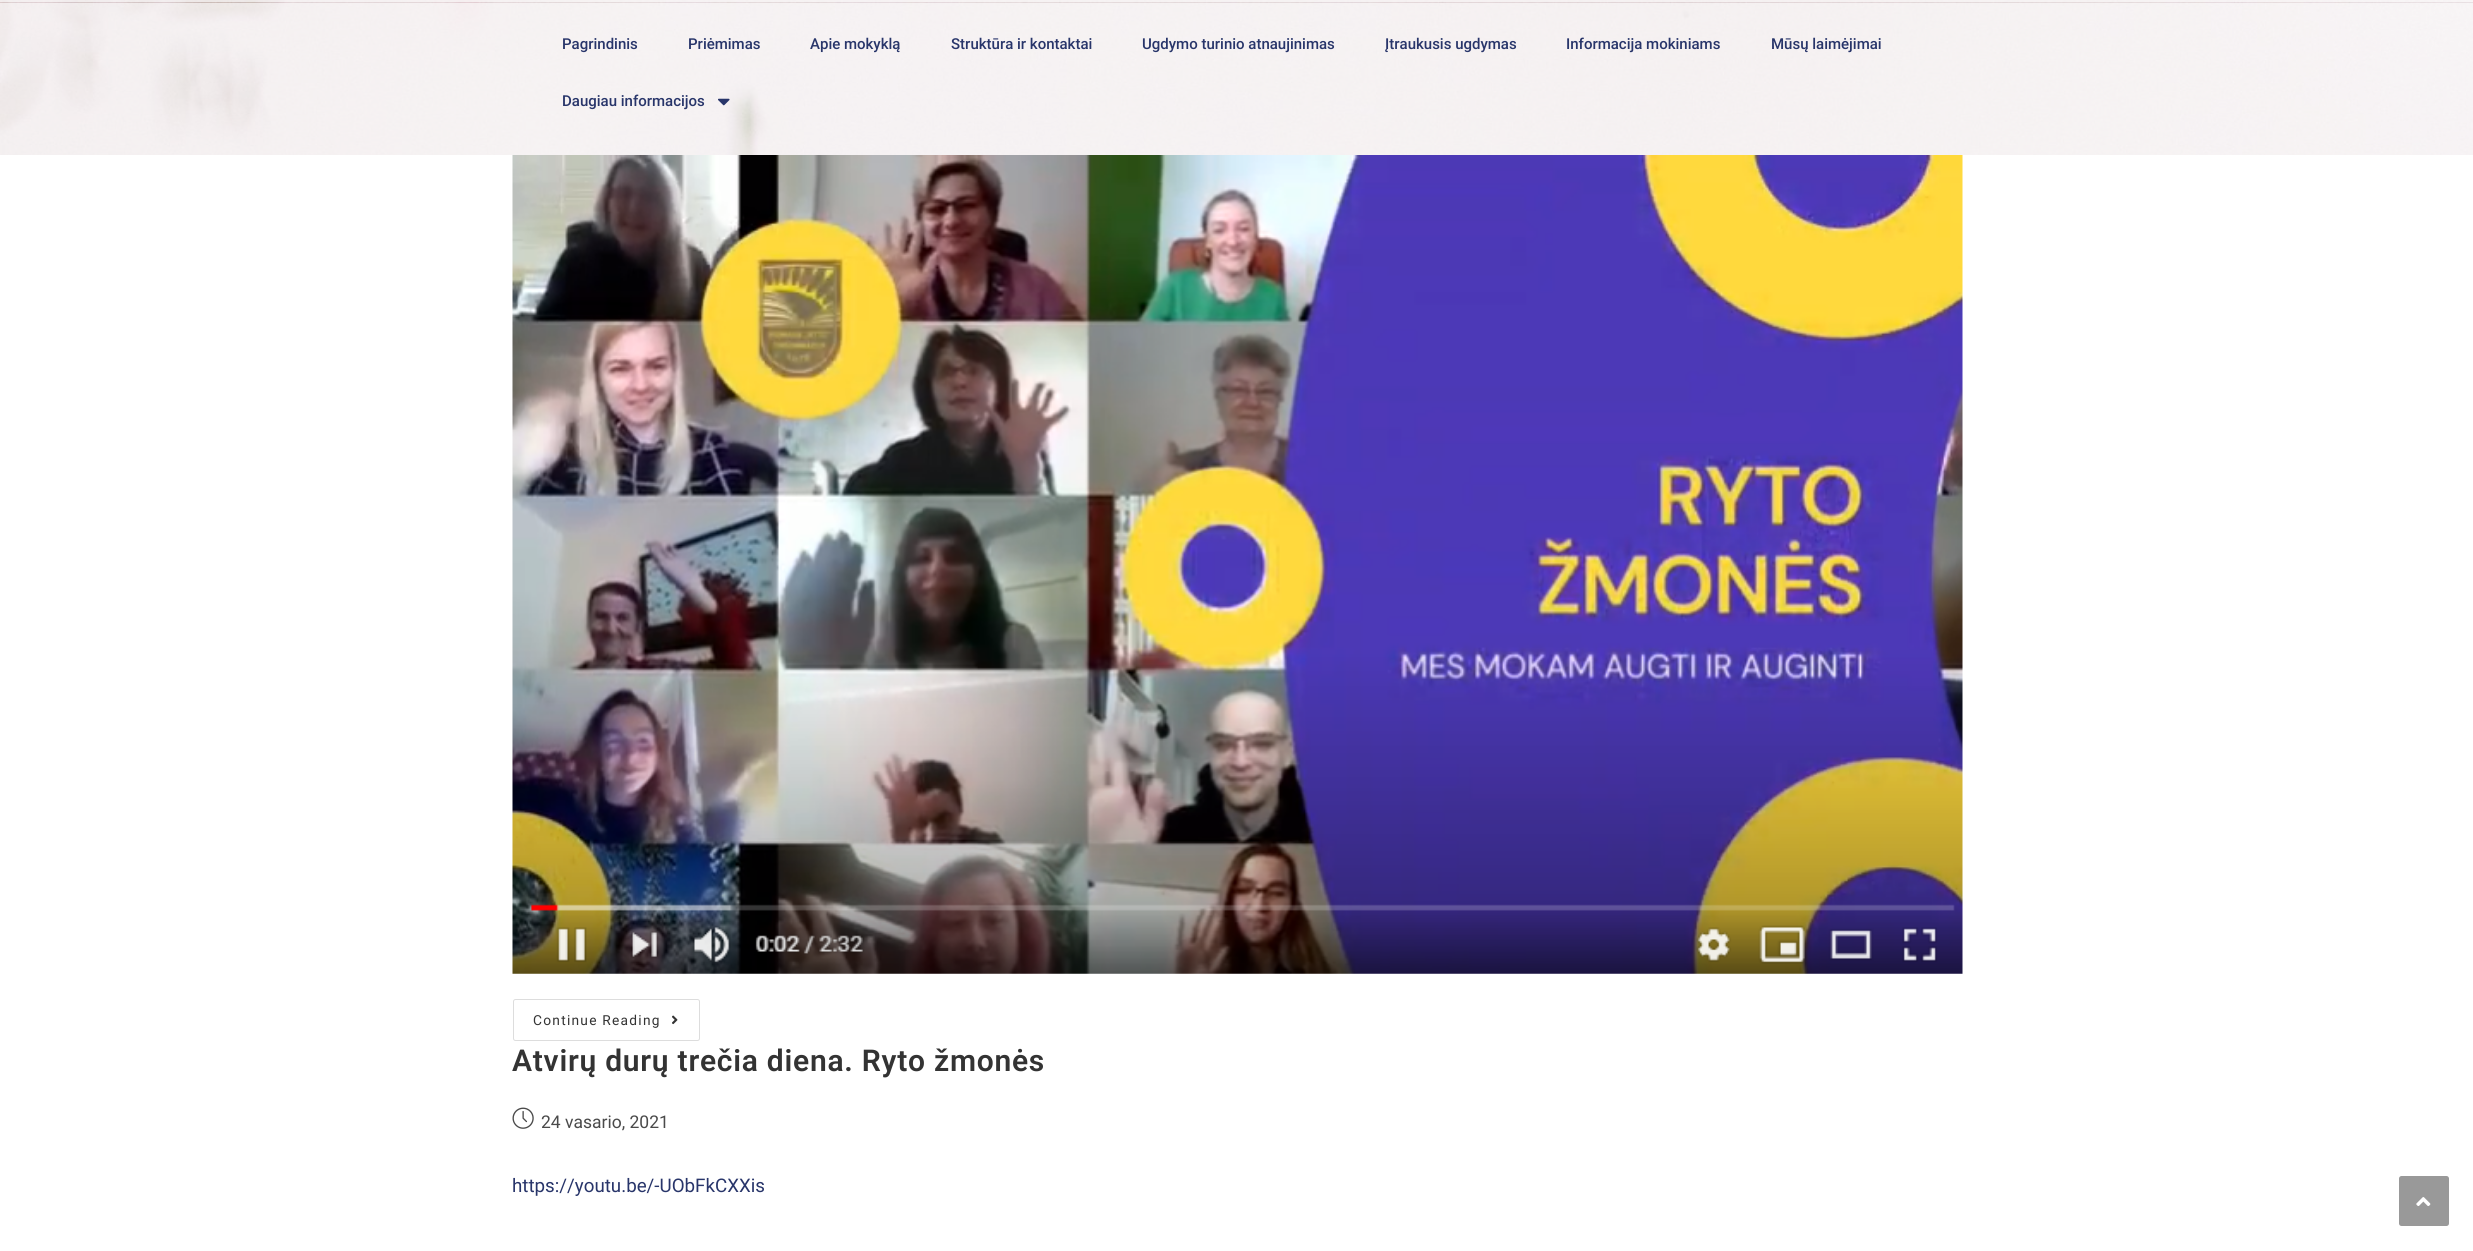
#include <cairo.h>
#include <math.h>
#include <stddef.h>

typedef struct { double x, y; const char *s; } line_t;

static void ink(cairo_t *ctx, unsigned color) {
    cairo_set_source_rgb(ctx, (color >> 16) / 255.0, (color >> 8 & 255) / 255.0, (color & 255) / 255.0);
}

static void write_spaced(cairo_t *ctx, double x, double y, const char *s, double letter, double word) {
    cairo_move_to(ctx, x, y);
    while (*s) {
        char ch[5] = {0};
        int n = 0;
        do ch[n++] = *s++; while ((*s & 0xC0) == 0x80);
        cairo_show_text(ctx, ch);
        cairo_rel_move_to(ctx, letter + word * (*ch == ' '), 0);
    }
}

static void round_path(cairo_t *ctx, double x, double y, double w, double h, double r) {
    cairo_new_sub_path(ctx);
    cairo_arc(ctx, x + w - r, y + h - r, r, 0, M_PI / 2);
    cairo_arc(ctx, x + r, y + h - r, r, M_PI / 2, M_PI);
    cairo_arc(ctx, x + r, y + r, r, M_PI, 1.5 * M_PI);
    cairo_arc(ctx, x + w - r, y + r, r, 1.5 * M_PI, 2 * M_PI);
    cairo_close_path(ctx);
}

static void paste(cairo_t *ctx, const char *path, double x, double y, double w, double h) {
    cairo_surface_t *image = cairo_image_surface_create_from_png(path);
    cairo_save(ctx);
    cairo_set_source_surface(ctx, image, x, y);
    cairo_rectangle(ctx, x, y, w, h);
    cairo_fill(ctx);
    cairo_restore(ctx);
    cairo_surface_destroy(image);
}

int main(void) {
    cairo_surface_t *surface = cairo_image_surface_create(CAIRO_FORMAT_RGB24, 2473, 1251);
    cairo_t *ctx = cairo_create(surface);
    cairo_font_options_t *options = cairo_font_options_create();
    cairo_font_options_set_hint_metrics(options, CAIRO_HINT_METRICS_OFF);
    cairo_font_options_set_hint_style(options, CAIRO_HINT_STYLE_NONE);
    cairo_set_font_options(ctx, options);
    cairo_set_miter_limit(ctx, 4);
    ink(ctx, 0xFFFFFF);
    cairo_paint(ctx);
    paste(ctx, "media/1.png", 0, 0, 2473, 2);
    paste(ctx, "media/2.png", 0, 2, 2473, 153);
    cairo_select_font_face(ctx, "Roboto Medium", CAIRO_FONT_SLANT_NORMAL, CAIRO_FONT_WEIGHT_NORMAL);
    cairo_set_font_size(ctx, 15);
    ink(ctx, 0x28356A);
    {
        static const line_t items[] = {
            {562, 49, "Pagrindinis"},
            {688, 49, "Priėmimas"},
            {810, 49, "Apie mokyklą"},
            {951, 49, "Struktūra ir kontaktai"},
            {1142, 49, "Ugdymo turinio atnaujinimas"},
            {1385, 49, "Įtraukusis ugdymas"},
            {1566, 49, "Informacija mokiniams"},
            {1771, 49, "Mūsų laimėjimai"},
            {562, 106, "Daugiau informacijos"},
        };
        for (size_t i = 0; i < sizeof items / sizeof *items; i++) {
            cairo_move_to(ctx, items[i].x, items[i].y);
            cairo_show_text(ctx, items[i].s);
        }
    }
    paste(ctx, "media/3.png", 718, 98, 12, 8);
    paste(ctx, "media/4.png", 512, 155, 1451, 819);
    round_path(ctx, 513.5, 999.5, 186, 41, 2);
    ink(ctx, 0xDDDDDD);
    cairo_set_line_width(ctx, 1);
    cairo_stroke(ctx);
    cairo_select_font_face(ctx, "Roboto", CAIRO_FONT_SLANT_NORMAL, CAIRO_FONT_WEIGHT_NORMAL);
    cairo_set_font_size(ctx, 13.75);
    ink(ctx, 0x333333);
    write_spaced(ctx, 533, 1025, "Continue Reading", 1.25, 0);
    paste(ctx, "media/5.png", 672, 1015, 6, 10);
    cairo_select_font_face(ctx, "Roboto SemiBold", CAIRO_FONT_SLANT_NORMAL, CAIRO_FONT_WEIGHT_NORMAL);
    cairo_set_font_size(ctx, 30);
    write_spaced(ctx, 512, 1071, "Atvirų durų trečia diena. Ryto žmonės", 0.75, 0);
    paste(ctx, "media/6.png", 512, 1107, 22, 22);
    cairo_select_font_face(ctx, "Roboto", CAIRO_FONT_SLANT_NORMAL, CAIRO_FONT_WEIGHT_NORMAL);
    cairo_set_font_size(ctx, 17.5);
    ink(ctx, 0x4A4A4A);
    cairo_move_to(ctx, 541, 1128);
    cairo_show_text(ctx, "24 vasario, 2021");
    cairo_set_font_size(ctx, 18.75);
    ink(ctx, 0x28356A);
    cairo_move_to(ctx, 512, 1192);
    cairo_show_text(ctx, "https://youtu.be/-UObFkCXXis");
    ink(ctx, 0x999999);
    round_path(ctx, 2399, 1176, 50, 50, 2.5);
    cairo_fill(ctx);
    paste(ctx, "media/7.png", 2416, 1197, 15, 9);
    cairo_surface_write_to_png(surface, "image.png");
    cairo_font_options_destroy(options);
    cairo_destroy(ctx);
    cairo_surface_destroy(surface);
    return 0;
}
